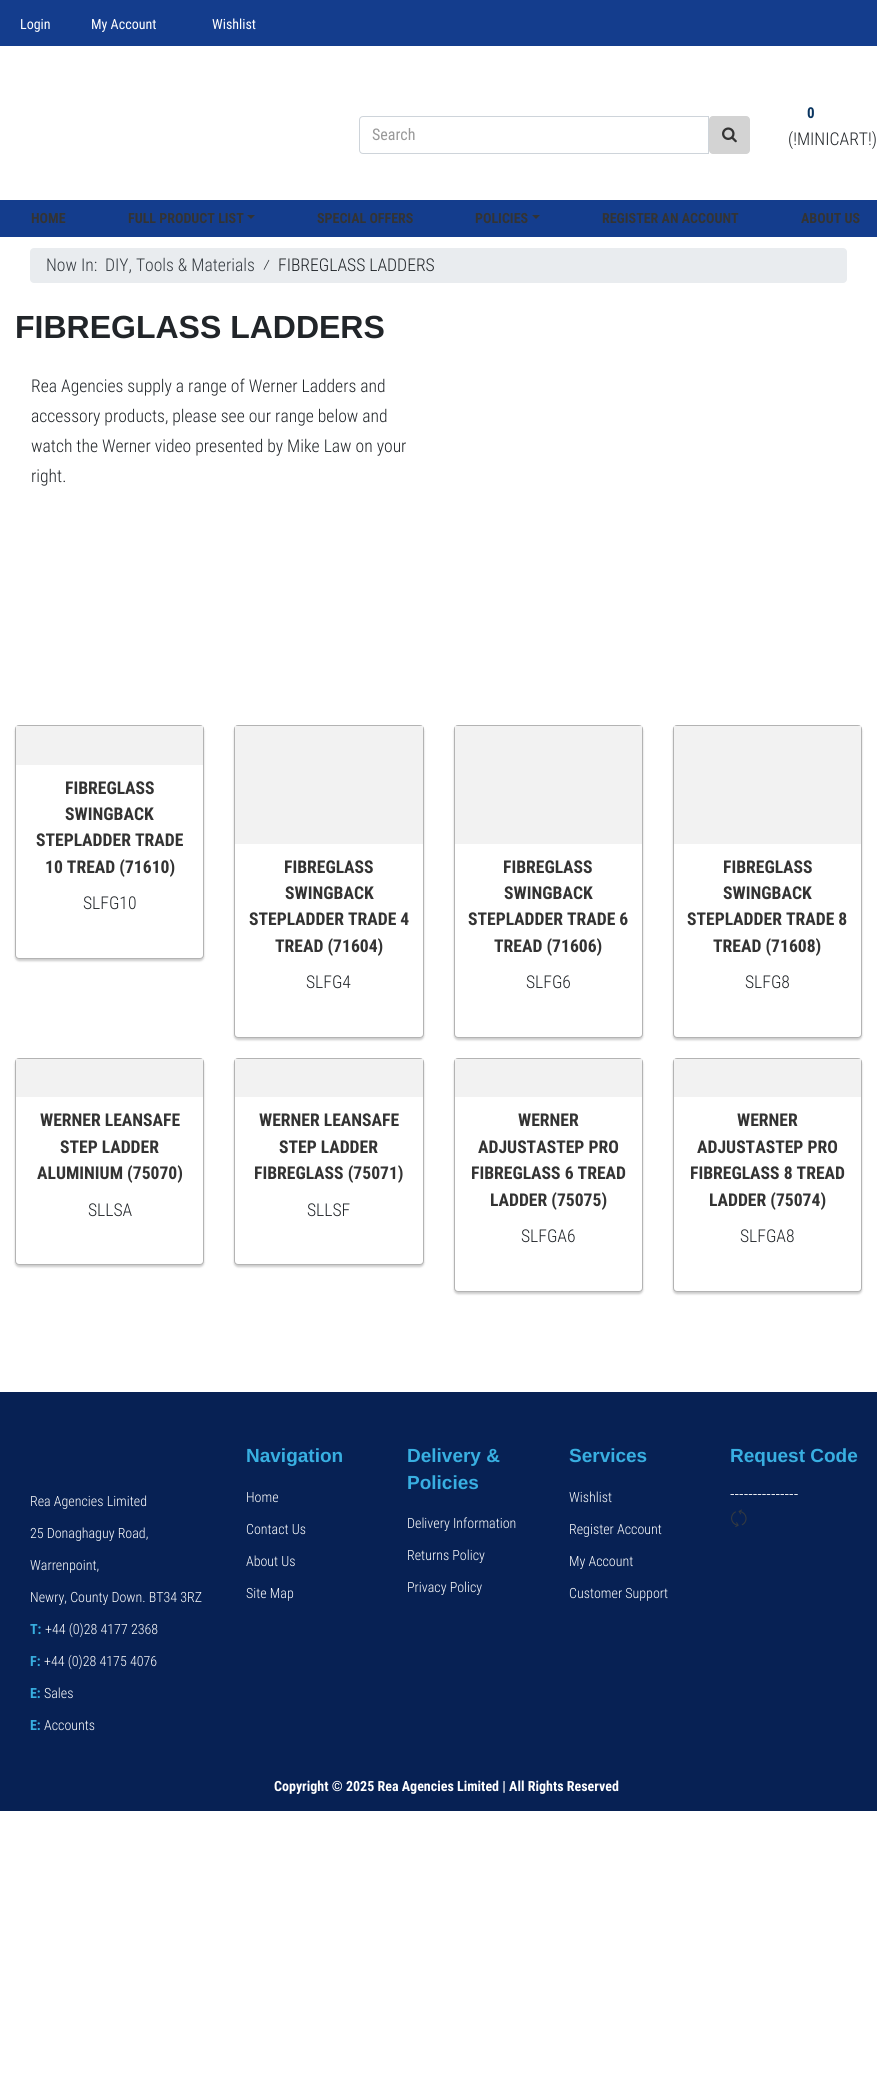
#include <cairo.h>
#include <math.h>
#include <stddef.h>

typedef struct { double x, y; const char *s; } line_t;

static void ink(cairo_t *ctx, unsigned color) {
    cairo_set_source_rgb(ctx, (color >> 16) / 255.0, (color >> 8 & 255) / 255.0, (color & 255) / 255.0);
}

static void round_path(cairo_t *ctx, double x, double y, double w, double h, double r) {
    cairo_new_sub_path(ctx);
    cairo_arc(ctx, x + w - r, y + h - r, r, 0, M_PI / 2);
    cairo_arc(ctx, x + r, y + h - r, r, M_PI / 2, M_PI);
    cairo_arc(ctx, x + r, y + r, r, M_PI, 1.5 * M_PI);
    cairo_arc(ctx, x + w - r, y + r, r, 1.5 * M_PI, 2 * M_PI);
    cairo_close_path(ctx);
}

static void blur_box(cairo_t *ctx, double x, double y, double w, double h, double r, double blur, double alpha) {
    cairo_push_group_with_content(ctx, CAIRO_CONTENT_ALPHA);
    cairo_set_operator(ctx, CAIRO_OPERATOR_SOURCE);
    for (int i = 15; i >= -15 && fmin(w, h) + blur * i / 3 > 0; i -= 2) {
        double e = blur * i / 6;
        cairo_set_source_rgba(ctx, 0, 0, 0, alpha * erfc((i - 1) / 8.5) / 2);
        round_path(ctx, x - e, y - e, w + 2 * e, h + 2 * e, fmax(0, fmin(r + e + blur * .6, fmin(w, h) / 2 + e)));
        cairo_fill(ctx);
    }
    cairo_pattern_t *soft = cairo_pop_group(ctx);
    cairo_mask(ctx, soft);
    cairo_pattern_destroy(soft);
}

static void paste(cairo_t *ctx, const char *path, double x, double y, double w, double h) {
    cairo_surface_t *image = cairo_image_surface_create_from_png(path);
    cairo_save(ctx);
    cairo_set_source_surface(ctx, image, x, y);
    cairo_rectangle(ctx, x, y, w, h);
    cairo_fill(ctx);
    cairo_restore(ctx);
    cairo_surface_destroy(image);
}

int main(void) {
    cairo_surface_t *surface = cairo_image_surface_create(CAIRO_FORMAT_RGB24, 877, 2100);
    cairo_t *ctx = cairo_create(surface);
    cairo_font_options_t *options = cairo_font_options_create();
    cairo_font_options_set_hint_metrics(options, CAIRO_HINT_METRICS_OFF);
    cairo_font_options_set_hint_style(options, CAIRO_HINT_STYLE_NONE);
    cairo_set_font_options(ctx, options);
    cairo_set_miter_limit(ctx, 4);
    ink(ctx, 0xFFFFFF);
    cairo_paint(ctx);
    ink(ctx, 0x143D8D);
    cairo_rectangle(ctx, 0, 0, 877, 46);
    cairo_fill(ctx);
    cairo_select_font_face(ctx, "Roboto Condensed", CAIRO_FONT_SLANT_NORMAL, CAIRO_FONT_WEIGHT_NORMAL);
    cairo_set_font_size(ctx, 14);
    ink(ctx, 0xFFFFFF);
    {
        static const line_t items[] = {
            {20, 29, "Login"},
            {91, 29, "My Account"},
            {212, 29, "Wishlist"},
        };
        for (size_t i = 0; i < sizeof items / sizeof *items; i++) {
            cairo_move_to(ctx, items[i].x, items[i].y);
            cairo_show_text(ctx, items[i].s);
        }
    }
    cairo_new_path(ctx);
    cairo_move_to(ctx, 363, 116.5);
    cairo_line_to(ctx, 708.5, 116.5);
    cairo_line_to(ctx, 708.5, 153.5);
    cairo_line_to(ctx, 363, 153.5);
    cairo_curve_to(ctx, 361, 153.5, 359.5, 152, 359.5, 150);
    cairo_line_to(ctx, 359.5, 120);
    cairo_curve_to(ctx, 359.5, 118, 361, 116.5, 363, 116.5);
    cairo_close_path(ctx);
    ink(ctx, 0xCED4DA);
    cairo_set_line_width(ctx, 1);
    cairo_stroke(ctx);
    cairo_set_font_size(ctx, 16);
    ink(ctx, 0x999999);
    cairo_move_to(ctx, 372, 140);
    cairo_show_text(ctx, "Search");
    ink(ctx, 0xD3D3D3);
    round_path(ctx, 709.5, 116.5, 40, 37, 3.5);
    cairo_fill_preserve(ctx);
    cairo_stroke(ctx);
    paste(ctx, "media/1.png", 722, 127, 15, 16);
    cairo_select_font_face(ctx, "Roboto Condensed", CAIRO_FONT_SLANT_NORMAL, CAIRO_FONT_WEIGHT_BOLD);
    cairo_set_font_size(ctx, 15);
    ink(ctx, 0x0A3560);
    cairo_move_to(ctx, 807, 118);
    cairo_show_text(ctx, "0");
    cairo_select_font_face(ctx, "Roboto Condensed Light", CAIRO_FONT_SLANT_NORMAL, CAIRO_FONT_WEIGHT_NORMAL);
    cairo_set_font_size(ctx, 17.6);
    ink(ctx, 0x212529);
    cairo_move_to(ctx, 788, 145);
    cairo_show_text(ctx, "(!MINICART!)");
    ink(ctx, 0x143D8D);
    cairo_rectangle(ctx, 0, 200, 877, 37);
    cairo_fill(ctx);
    cairo_select_font_face(ctx, "Roboto Condensed", CAIRO_FONT_SLANT_NORMAL, CAIRO_FONT_WEIGHT_BOLD);
    cairo_set_font_size(ctx, 14);
    ink(ctx, 0x333333);
    cairo_move_to(ctx, 31, 223);
    cairo_show_text(ctx, "HOME");
    cairo_move_to(ctx, 128, 223);
    cairo_show_text(ctx, "FULL PRODUCT LIST");
    cairo_new_path(ctx);
    cairo_move_to(ctx, 247, 215);
    cairo_line_to(ctx, 255, 215);
    cairo_line_to(ctx, 251, 219);
    cairo_close_path(ctx);
    cairo_fill(ctx);
    cairo_move_to(ctx, 317, 223);
    cairo_show_text(ctx, "SPECIAL OFFERS");
    cairo_move_to(ctx, 475, 223);
    cairo_show_text(ctx, "POLICIES");
    cairo_new_path(ctx);
    cairo_move_to(ctx, 532, 215);
    cairo_line_to(ctx, 540, 215);
    cairo_line_to(ctx, 536, 219);
    cairo_close_path(ctx);
    cairo_fill(ctx);
    cairo_move_to(ctx, 602, 223);
    cairo_show_text(ctx, "REGISTER AN ACCOUNT");
    cairo_move_to(ctx, 801, 223);
    cairo_show_text(ctx, "ABOUT US");
    ink(ctx, 0xE9ECEF);
    round_path(ctx, 30, 248, 817, 35, 4);
    cairo_fill(ctx);
    cairo_select_font_face(ctx, "Roboto Condensed Light", CAIRO_FONT_SLANT_NORMAL, CAIRO_FONT_WEIGHT_NORMAL);
    cairo_set_font_size(ctx, 17.6);
    ink(ctx, 0x343A40);
    cairo_move_to(ctx, 46, 271);
    cairo_show_text(ctx, "Now In:");
    cairo_move_to(ctx, 105, 271);
    cairo_show_text(ctx, "DIY, Tools & Materials");
    ink(ctx, 0x212529);
    cairo_move_to(ctx, 263, 271);
    cairo_show_text(ctx, "⁄");
    cairo_move_to(ctx, 278, 271);
    cairo_show_text(ctx, "FIBREGLASS LADDERS");
    cairo_select_font_face(ctx, "Liberation Sans", CAIRO_FONT_SLANT_NORMAL, CAIRO_FONT_WEIGHT_BOLD);
    cairo_set_font_size(ctx, 32);
    cairo_move_to(ctx, 15, 338);
    cairo_show_text(ctx, "FIBREGLASS LADDERS");
    cairo_select_font_face(ctx, "Roboto Condensed Light", CAIRO_FONT_SLANT_NORMAL, CAIRO_FONT_WEIGHT_NORMAL);
    cairo_set_font_size(ctx, 17.6);
    {
        static const line_t items[] = {
            {31, 392, "Rea Agencies supply a range of Werner Ladders and"},
            {31, 422, "accessory products, please see our range below and"},
            {31, 452, "watch the Werner video presented by Mike Law on your"},
            {31, 482, "right."},
        };
        for (size_t i = 0; i < sizeof items / sizeof *items; i++) {
            cairo_move_to(ctx, items[i].x, items[i].y);
            cairo_show_text(ctx, items[i].s);
        }
    }
    ink(ctx, 0x000000);
    blur_box(ctx, 15, 727, 189, 234, 4, 1, 0.2);
    ink(ctx, 0xFFFFFF);
    round_path(ctx, 15, 725, 189, 234, 4);
    cairo_fill(ctx);
    round_path(ctx, 15.5, 725.5, 188, 233, 3.5);
    cairo_set_source_rgba(ctx, 0, 0, 0, 0.3);
    cairo_stroke(ctx);
    ink(ctx, 0xF2F2F2);
    cairo_rectangle(ctx, 16, 726, 187, 39);
    cairo_fill(ctx);
    cairo_select_font_face(ctx, "Roboto Condensed", CAIRO_FONT_SLANT_NORMAL, CAIRO_FONT_WEIGHT_BOLD);
    ink(ctx, 0x333333);
    {
        static const line_t items[] = {
            {65, 794, "FIBREGLASS"},
            {65, 820, "SWINGBACK"},
            {36, 846, "STEPLADDER TRADE"},
            {45, 873, "10 TREAD (71610)"},
        };
        for (size_t i = 0; i < sizeof items / sizeof *items; i++) {
            cairo_move_to(ctx, items[i].x, items[i].y);
            cairo_show_text(ctx, items[i].s);
        }
    }
    cairo_select_font_face(ctx, "Roboto Condensed Light", CAIRO_FONT_SLANT_NORMAL, CAIRO_FONT_WEIGHT_NORMAL);
    ink(ctx, 0x212529);
    cairo_move_to(ctx, 83, 909);
    cairo_show_text(ctx, "SLFG10");
    ink(ctx, 0x000000);
    blur_box(ctx, 234, 727, 190, 313, 4, 1, 0.2);
    ink(ctx, 0xFFFFFF);
    round_path(ctx, 234, 725, 190, 313, 4);
    cairo_fill(ctx);
    round_path(ctx, 234.5, 725.5, 189, 312, 3.5);
    cairo_set_source_rgba(ctx, 0, 0, 0, 0.3);
    cairo_stroke(ctx);
    ink(ctx, 0xF2F2F2);
    cairo_rectangle(ctx, 235, 726, 188, 118);
    cairo_fill(ctx);
    cairo_select_font_face(ctx, "Roboto Condensed", CAIRO_FONT_SLANT_NORMAL, CAIRO_FONT_WEIGHT_BOLD);
    ink(ctx, 0x333333);
    {
        static const line_t items[] = {
            {284, 873, "FIBREGLASS"},
            {285, 899, "SWINGBACK"},
            {249, 925, "STEPLADDER TRADE 4"},
            {275, 952, "TREAD (71604)"},
        };
        for (size_t i = 0; i < sizeof items / sizeof *items; i++) {
            cairo_move_to(ctx, items[i].x, items[i].y);
            cairo_show_text(ctx, items[i].s);
        }
    }
    cairo_select_font_face(ctx, "Roboto Condensed Light", CAIRO_FONT_SLANT_NORMAL, CAIRO_FONT_WEIGHT_NORMAL);
    ink(ctx, 0x212529);
    cairo_move_to(ctx, 306, 988);
    cairo_show_text(ctx, "SLFG4");
    ink(ctx, 0x000000);
    blur_box(ctx, 454, 727, 189, 313, 4, 1, 0.2);
    ink(ctx, 0xFFFFFF);
    round_path(ctx, 454, 725, 189, 313, 4);
    cairo_fill(ctx);
    round_path(ctx, 454.5, 725.5, 188, 312, 3.5);
    cairo_set_source_rgba(ctx, 0, 0, 0, 0.3);
    cairo_stroke(ctx);
    ink(ctx, 0xF2F2F2);
    cairo_rectangle(ctx, 455, 726, 187, 118);
    cairo_fill(ctx);
    cairo_select_font_face(ctx, "Roboto Condensed", CAIRO_FONT_SLANT_NORMAL, CAIRO_FONT_WEIGHT_BOLD);
    ink(ctx, 0x333333);
    {
        static const line_t items[] = {
            {503, 873, "FIBREGLASS"},
            {504, 899, "SWINGBACK"},
            {468, 925, "STEPLADDER TRADE 6"},
            {494, 952, "TREAD (71606)"},
        };
        for (size_t i = 0; i < sizeof items / sizeof *items; i++) {
            cairo_move_to(ctx, items[i].x, items[i].y);
            cairo_show_text(ctx, items[i].s);
        }
    }
    cairo_select_font_face(ctx, "Roboto Condensed Light", CAIRO_FONT_SLANT_NORMAL, CAIRO_FONT_WEIGHT_NORMAL);
    ink(ctx, 0x212529);
    cairo_move_to(ctx, 526, 988);
    cairo_show_text(ctx, "SLFG6");
    ink(ctx, 0x000000);
    blur_box(ctx, 673, 727, 189, 313, 4, 1, 0.2);
    ink(ctx, 0xFFFFFF);
    round_path(ctx, 673, 725, 189, 313, 4);
    cairo_fill(ctx);
    round_path(ctx, 673.5, 725.5, 188, 312, 3.5);
    cairo_set_source_rgba(ctx, 0, 0, 0, 0.3);
    cairo_stroke(ctx);
    ink(ctx, 0xF2F2F2);
    cairo_rectangle(ctx, 674, 726, 187, 118);
    cairo_fill(ctx);
    cairo_select_font_face(ctx, "Roboto Condensed", CAIRO_FONT_SLANT_NORMAL, CAIRO_FONT_WEIGHT_BOLD);
    ink(ctx, 0x333333);
    {
        static const line_t items[] = {
            {723, 873, "FIBREGLASS"},
            {723, 899, "SWINGBACK"},
            {687, 925, "STEPLADDER TRADE 8"},
            {713, 952, "TREAD (71608)"},
        };
        for (size_t i = 0; i < sizeof items / sizeof *items; i++) {
            cairo_move_to(ctx, items[i].x, items[i].y);
            cairo_show_text(ctx, items[i].s);
        }
    }
    cairo_select_font_face(ctx, "Roboto Condensed Light", CAIRO_FONT_SLANT_NORMAL, CAIRO_FONT_WEIGHT_NORMAL);
    ink(ctx, 0x212529);
    cairo_move_to(ctx, 745, 988);
    cairo_show_text(ctx, "SLFG8");
    ink(ctx, 0x000000);
    blur_box(ctx, 15, 1060, 189, 207, 4, 1, 0.2);
    ink(ctx, 0xFFFFFF);
    round_path(ctx, 15, 1058, 189, 207, 4);
    cairo_fill(ctx);
    round_path(ctx, 15.5, 1058.5, 188, 206, 3.5);
    cairo_set_source_rgba(ctx, 0, 0, 0, 0.3);
    cairo_stroke(ctx);
    ink(ctx, 0xF2F2F2);
    cairo_rectangle(ctx, 16, 1059, 187, 38);
    cairo_fill(ctx);
    cairo_select_font_face(ctx, "Roboto Condensed", CAIRO_FONT_SLANT_NORMAL, CAIRO_FONT_WEIGHT_BOLD);
    ink(ctx, 0x333333);
    {
        static const line_t items[] = {
            {40, 1126, "WERNER LEANSAFE"},
            {60, 1153, "STEP LADDER"},
            {37, 1179, "ALUMINIUM (75070)"},
        };
        for (size_t i = 0; i < sizeof items / sizeof *items; i++) {
            cairo_move_to(ctx, items[i].x, items[i].y);
            cairo_show_text(ctx, items[i].s);
        }
    }
    cairo_select_font_face(ctx, "Roboto Condensed Light", CAIRO_FONT_SLANT_NORMAL, CAIRO_FONT_WEIGHT_NORMAL);
    ink(ctx, 0x212529);
    cairo_move_to(ctx, 88, 1216);
    cairo_show_text(ctx, "SLLSA");
    ink(ctx, 0x000000);
    blur_box(ctx, 234, 1060, 190, 207, 4, 1, 0.2);
    ink(ctx, 0xFFFFFF);
    round_path(ctx, 234, 1058, 190, 207, 4);
    cairo_fill(ctx);
    round_path(ctx, 234.5, 1058.5, 189, 206, 3.5);
    cairo_set_source_rgba(ctx, 0, 0, 0, 0.3);
    cairo_stroke(ctx);
    ink(ctx, 0xF2F2F2);
    cairo_rectangle(ctx, 235, 1059, 188, 38);
    cairo_fill(ctx);
    cairo_select_font_face(ctx, "Roboto Condensed", CAIRO_FONT_SLANT_NORMAL, CAIRO_FONT_WEIGHT_BOLD);
    ink(ctx, 0x333333);
    {
        static const line_t items[] = {
            {259, 1126, "WERNER LEANSAFE"},
            {279, 1153, "STEP LADDER"},
            {254, 1179, "FIBREGLASS (75071)"},
        };
        for (size_t i = 0; i < sizeof items / sizeof *items; i++) {
            cairo_move_to(ctx, items[i].x, items[i].y);
            cairo_show_text(ctx, items[i].s);
        }
    }
    cairo_select_font_face(ctx, "Roboto Condensed Light", CAIRO_FONT_SLANT_NORMAL, CAIRO_FONT_WEIGHT_NORMAL);
    ink(ctx, 0x212529);
    cairo_move_to(ctx, 307, 1216);
    cairo_show_text(ctx, "SLLSF");
    ink(ctx, 0x000000);
    blur_box(ctx, 454, 1060, 189, 234, 4, 1, 0.2);
    ink(ctx, 0xFFFFFF);
    round_path(ctx, 454, 1058, 189, 234, 4);
    cairo_fill(ctx);
    round_path(ctx, 454.5, 1058.5, 188, 233, 3.5);
    cairo_set_source_rgba(ctx, 0, 0, 0, 0.3);
    cairo_stroke(ctx);
    ink(ctx, 0xF2F2F2);
    cairo_rectangle(ctx, 455, 1059, 187, 38);
    cairo_fill(ctx);
    cairo_select_font_face(ctx, "Roboto Condensed", CAIRO_FONT_SLANT_NORMAL, CAIRO_FONT_WEIGHT_BOLD);
    ink(ctx, 0x333333);
    {
        static const line_t items[] = {
            {518, 1126, "WERNER"},
            {478, 1153, "ADJUSTASTEP PRO"},
            {471, 1179, "FIBREGLASS 6 TREAD"},
            {490, 1206, "LADDER (75075)"},
        };
        for (size_t i = 0; i < sizeof items / sizeof *items; i++) {
            cairo_move_to(ctx, items[i].x, items[i].y);
            cairo_show_text(ctx, items[i].s);
        }
    }
    cairo_select_font_face(ctx, "Roboto Condensed Light", CAIRO_FONT_SLANT_NORMAL, CAIRO_FONT_WEIGHT_NORMAL);
    ink(ctx, 0x212529);
    cairo_move_to(ctx, 521, 1242);
    cairo_show_text(ctx, "SLFGA6");
    ink(ctx, 0x000000);
    blur_box(ctx, 673, 1060, 189, 234, 4, 1, 0.2);
    ink(ctx, 0xFFFFFF);
    round_path(ctx, 673, 1058, 189, 234, 4);
    cairo_fill(ctx);
    round_path(ctx, 673.5, 1058.5, 188, 233, 3.5);
    cairo_set_source_rgba(ctx, 0, 0, 0, 0.3);
    cairo_stroke(ctx);
    ink(ctx, 0xF2F2F2);
    cairo_rectangle(ctx, 674, 1059, 187, 38);
    cairo_fill(ctx);
    cairo_select_font_face(ctx, "Roboto Condensed", CAIRO_FONT_SLANT_NORMAL, CAIRO_FONT_WEIGHT_BOLD);
    ink(ctx, 0x333333);
    {
        static const line_t items[] = {
            {737, 1126, "WERNER"},
            {697, 1153, "ADJUSTASTEP PRO"},
            {690, 1179, "FIBREGLASS 8 TREAD"},
            {709, 1206, "LADDER (75074)"},
        };
        for (size_t i = 0; i < sizeof items / sizeof *items; i++) {
            cairo_move_to(ctx, items[i].x, items[i].y);
            cairo_show_text(ctx, items[i].s);
        }
    }
    cairo_select_font_face(ctx, "Roboto Condensed Light", CAIRO_FONT_SLANT_NORMAL, CAIRO_FONT_WEIGHT_NORMAL);
    ink(ctx, 0x212529);
    cairo_move_to(ctx, 740, 1242);
    cairo_show_text(ctx, "SLFGA8");
    ink(ctx, 0x072154);
    cairo_rectangle(ctx, 0, 1392, 877, 419);
    cairo_fill(ctx);
    cairo_set_font_size(ctx, 14);
    ink(ctx, 0xFFFFFF);
    {
        static const line_t items[] = {
            {30, 1506, "Rea Agencies Limited"},
            {30, 1538, "25 Donaghaguy Road,"},
            {30, 1570, "Warrenpoint,"},
            {30, 1602, "Newry, County Down. BT34 3RZ"},
        };
        for (size_t i = 0; i < sizeof items / sizeof *items; i++) {
            cairo_move_to(ctx, items[i].x, items[i].y);
            cairo_show_text(ctx, items[i].s);
        }
    }
    cairo_select_font_face(ctx, "Roboto Condensed", CAIRO_FONT_SLANT_NORMAL, CAIRO_FONT_WEIGHT_BOLD);
    ink(ctx, 0x38AFE1);
    cairo_move_to(ctx, 30, 1634);
    cairo_show_text(ctx, "T:");
    cairo_select_font_face(ctx, "Roboto Condensed Light", CAIRO_FONT_SLANT_NORMAL, CAIRO_FONT_WEIGHT_NORMAL);
    ink(ctx, 0xFFFFFF);
    cairo_move_to(ctx, 45, 1634);
    cairo_show_text(ctx, "+44 (0)28 4177 2368");
    cairo_select_font_face(ctx, "Roboto Condensed", CAIRO_FONT_SLANT_NORMAL, CAIRO_FONT_WEIGHT_BOLD);
    ink(ctx, 0x38AFE1);
    cairo_move_to(ctx, 30, 1666);
    cairo_show_text(ctx, "F:");
    cairo_select_font_face(ctx, "Roboto Condensed Light", CAIRO_FONT_SLANT_NORMAL, CAIRO_FONT_WEIGHT_NORMAL);
    ink(ctx, 0xFFFFFF);
    cairo_move_to(ctx, 44, 1666);
    cairo_show_text(ctx, "+44 (0)28 4175 4076");
    cairo_select_font_face(ctx, "Roboto Condensed", CAIRO_FONT_SLANT_NORMAL, CAIRO_FONT_WEIGHT_BOLD);
    ink(ctx, 0x38AFE1);
    cairo_move_to(ctx, 30, 1698);
    cairo_show_text(ctx, "E:");
    cairo_select_font_face(ctx, "Roboto Condensed Light", CAIRO_FONT_SLANT_NORMAL, CAIRO_FONT_WEIGHT_NORMAL);
    ink(ctx, 0xFFFFFF);
    cairo_move_to(ctx, 44, 1698);
    cairo_show_text(ctx, "Sales");
    cairo_select_font_face(ctx, "Roboto Condensed", CAIRO_FONT_SLANT_NORMAL, CAIRO_FONT_WEIGHT_BOLD);
    ink(ctx, 0x38AFE1);
    cairo_move_to(ctx, 30, 1730);
    cairo_show_text(ctx, "E:");
    cairo_select_font_face(ctx, "Roboto Condensed Light", CAIRO_FONT_SLANT_NORMAL, CAIRO_FONT_WEIGHT_NORMAL);
    ink(ctx, 0xFFFFFF);
    cairo_move_to(ctx, 44, 1730);
    cairo_show_text(ctx, "Accounts");
    cairo_select_font_face(ctx, "Liberation Sans", CAIRO_FONT_SLANT_NORMAL, CAIRO_FONT_WEIGHT_BOLD);
    cairo_set_font_size(ctx, 19);
    ink(ctx, 0x38AFE1);
    cairo_move_to(ctx, 246, 1462);
    cairo_show_text(ctx, "Navigation");
    cairo_select_font_face(ctx, "Roboto Condensed Light", CAIRO_FONT_SLANT_NORMAL, CAIRO_FONT_WEIGHT_NORMAL);
    cairo_set_font_size(ctx, 14);
    ink(ctx, 0xFFFFFF);
    {
        static const line_t items[] = {
            {246, 1502, "Home"},
            {246, 1534, "Contact Us"},
            {246, 1566, "About Us"},
            {246, 1598, "Site Map"},
        };
        for (size_t i = 0; i < sizeof items / sizeof *items; i++) {
            cairo_move_to(ctx, items[i].x, items[i].y);
            cairo_show_text(ctx, items[i].s);
        }
    }
    cairo_select_font_face(ctx, "Liberation Sans", CAIRO_FONT_SLANT_NORMAL, CAIRO_FONT_WEIGHT_BOLD);
    cairo_set_font_size(ctx, 19);
    ink(ctx, 0x38AFE1);
    cairo_move_to(ctx, 407, 1462);
    cairo_show_text(ctx, "Delivery &");
    cairo_move_to(ctx, 407, 1489);
    cairo_show_text(ctx, "Policies");
    cairo_select_font_face(ctx, "Roboto Condensed Light", CAIRO_FONT_SLANT_NORMAL, CAIRO_FONT_WEIGHT_NORMAL);
    cairo_set_font_size(ctx, 14);
    ink(ctx, 0xFFFFFF);
    {
        static const line_t items[] = {
            {407, 1528, "Delivery Information"},
            {407, 1560, "Returns Policy"},
            {407, 1592, "Privacy Policy"},
        };
        for (size_t i = 0; i < sizeof items / sizeof *items; i++) {
            cairo_move_to(ctx, items[i].x, items[i].y);
            cairo_show_text(ctx, items[i].s);
        }
    }
    cairo_select_font_face(ctx, "Liberation Sans", CAIRO_FONT_SLANT_NORMAL, CAIRO_FONT_WEIGHT_BOLD);
    cairo_set_font_size(ctx, 19);
    ink(ctx, 0x38AFE1);
    cairo_move_to(ctx, 569, 1462);
    cairo_show_text(ctx, "Services");
    cairo_select_font_face(ctx, "Roboto Condensed Light", CAIRO_FONT_SLANT_NORMAL, CAIRO_FONT_WEIGHT_NORMAL);
    cairo_set_font_size(ctx, 14);
    ink(ctx, 0xFFFFFF);
    {
        static const line_t items[] = {
            {569, 1502, "Wishlist"},
            {569, 1534, "Register Account"},
            {569, 1566, "My Account"},
            {569, 1598, "Customer Support"},
        };
        for (size_t i = 0; i < sizeof items / sizeof *items; i++) {
            cairo_move_to(ctx, items[i].x, items[i].y);
            cairo_show_text(ctx, items[i].s);
        }
    }
    cairo_select_font_face(ctx, "Liberation Sans", CAIRO_FONT_SLANT_NORMAL, CAIRO_FONT_WEIGHT_BOLD);
    cairo_set_font_size(ctx, 19);
    ink(ctx, 0x38AFE1);
    cairo_move_to(ctx, 730, 1462);
    cairo_show_text(ctx, "Request Code");
    cairo_select_font_face(ctx, "Roboto Condensed Light", CAIRO_FONT_SLANT_NORMAL, CAIRO_FONT_WEIGHT_NORMAL);
    cairo_set_font_size(ctx, 17.6);
    ink(ctx, 0xFFFFFF);
    cairo_move_to(ctx, 730, 1500);
    cairo_show_text(ctx, "---------------");
    paste(ctx, "media/2.png", 731, 1509, 16, 18);
    cairo_select_font_face(ctx, "Roboto Condensed", CAIRO_FONT_SLANT_NORMAL, CAIRO_FONT_WEIGHT_BOLD);
    cairo_set_font_size(ctx, 14);
    cairo_move_to(ctx, 274, 1791);
    cairo_show_text(ctx, "Copyright © 2025 Rea Agencies Limited | All Rights Reserved");
    cairo_surface_write_to_png(surface, "image.png");
    cairo_font_options_destroy(options);
    cairo_destroy(ctx);
    cairo_surface_destroy(surface);
    return 0;
}
